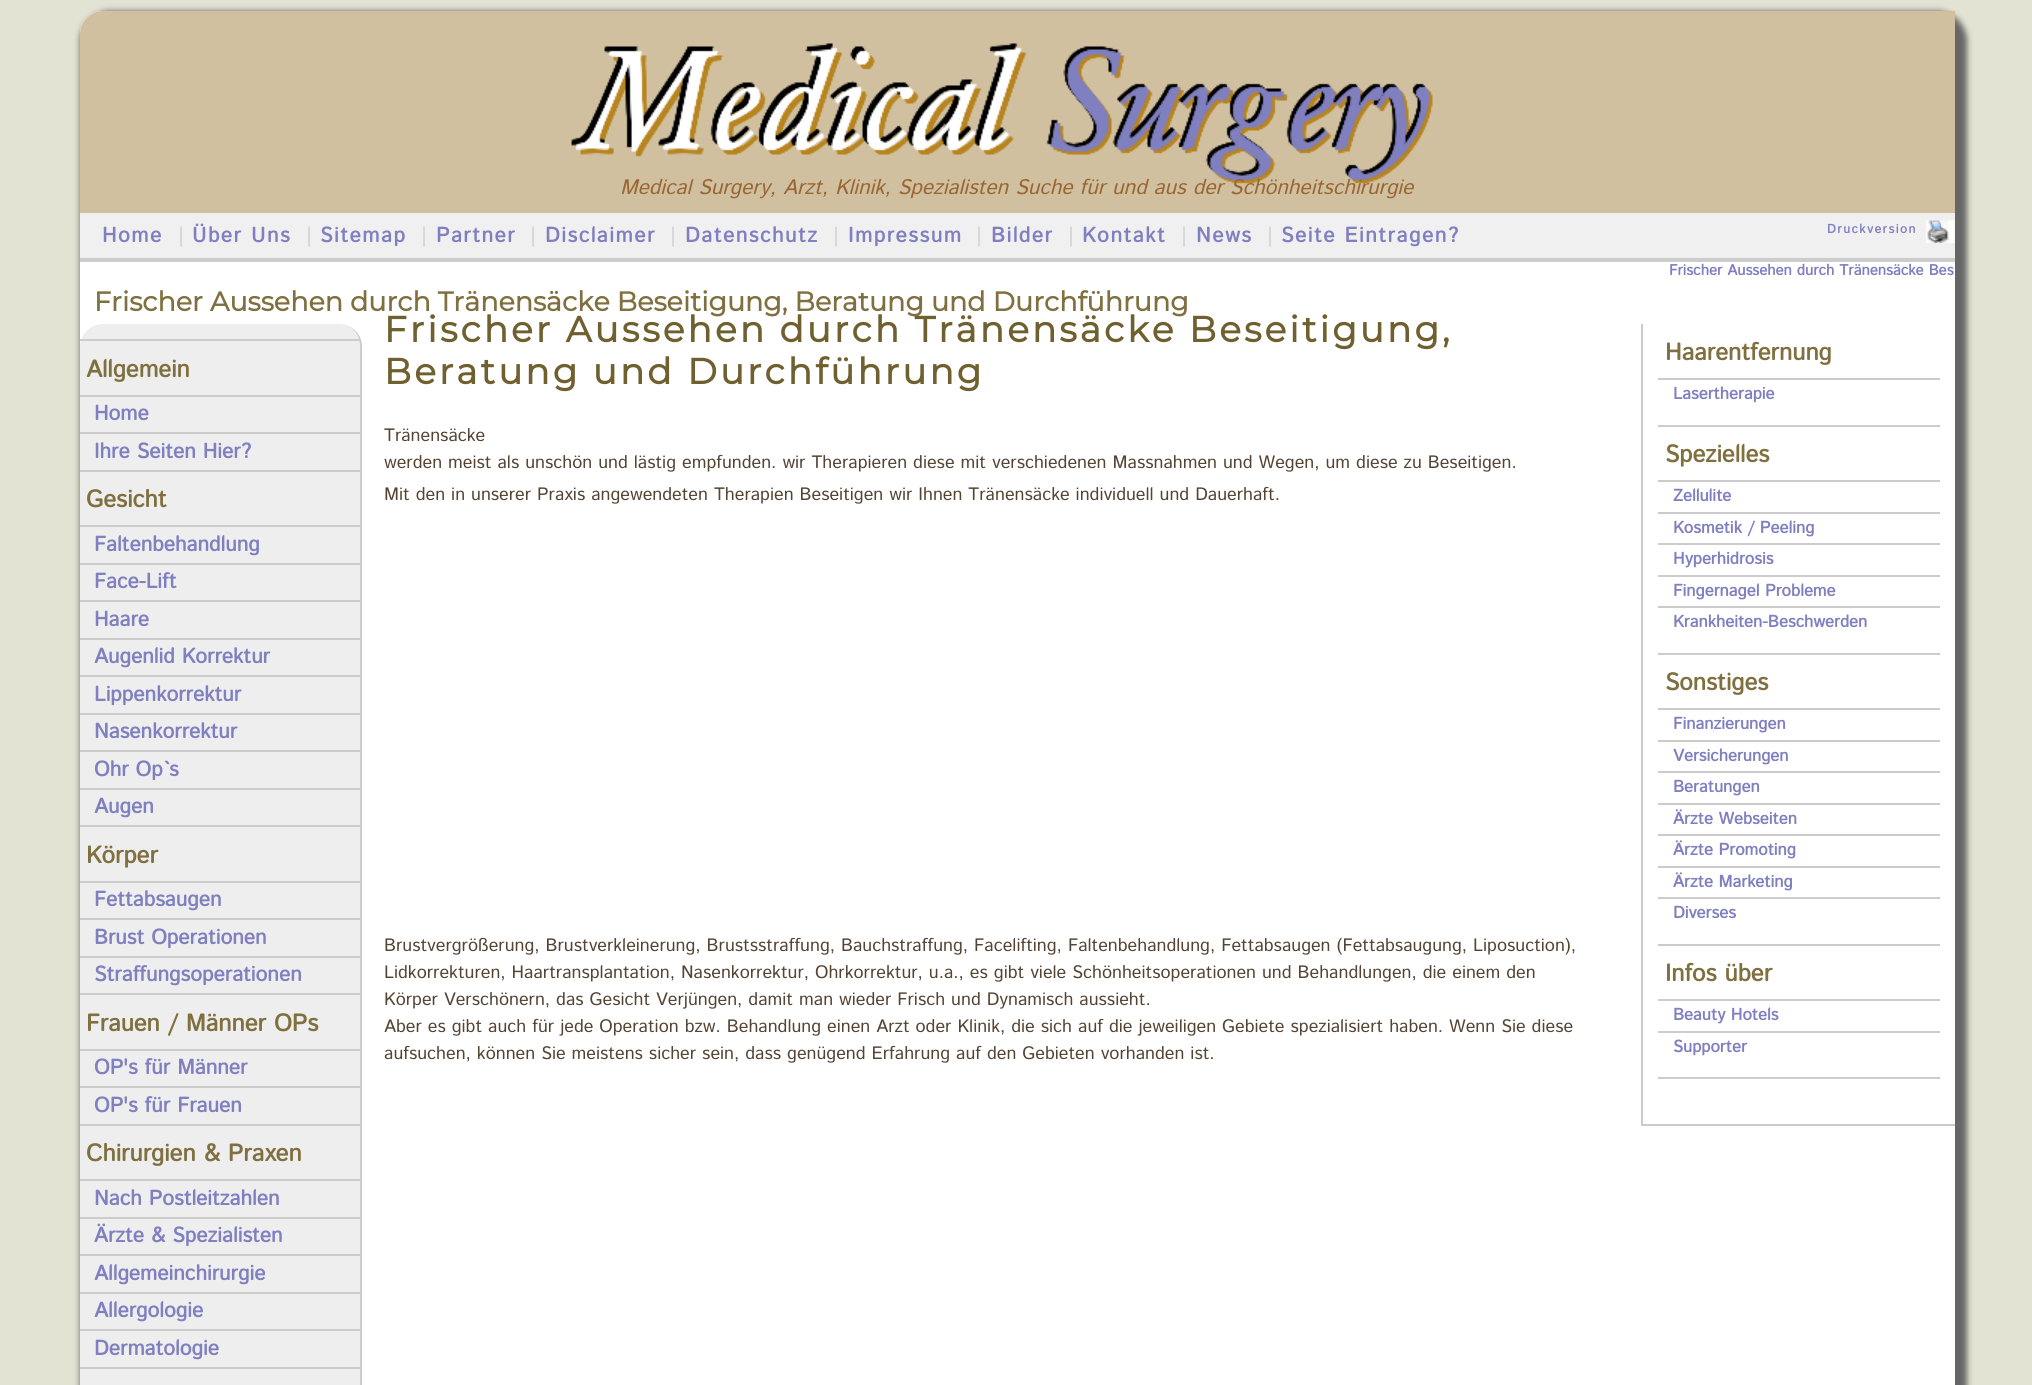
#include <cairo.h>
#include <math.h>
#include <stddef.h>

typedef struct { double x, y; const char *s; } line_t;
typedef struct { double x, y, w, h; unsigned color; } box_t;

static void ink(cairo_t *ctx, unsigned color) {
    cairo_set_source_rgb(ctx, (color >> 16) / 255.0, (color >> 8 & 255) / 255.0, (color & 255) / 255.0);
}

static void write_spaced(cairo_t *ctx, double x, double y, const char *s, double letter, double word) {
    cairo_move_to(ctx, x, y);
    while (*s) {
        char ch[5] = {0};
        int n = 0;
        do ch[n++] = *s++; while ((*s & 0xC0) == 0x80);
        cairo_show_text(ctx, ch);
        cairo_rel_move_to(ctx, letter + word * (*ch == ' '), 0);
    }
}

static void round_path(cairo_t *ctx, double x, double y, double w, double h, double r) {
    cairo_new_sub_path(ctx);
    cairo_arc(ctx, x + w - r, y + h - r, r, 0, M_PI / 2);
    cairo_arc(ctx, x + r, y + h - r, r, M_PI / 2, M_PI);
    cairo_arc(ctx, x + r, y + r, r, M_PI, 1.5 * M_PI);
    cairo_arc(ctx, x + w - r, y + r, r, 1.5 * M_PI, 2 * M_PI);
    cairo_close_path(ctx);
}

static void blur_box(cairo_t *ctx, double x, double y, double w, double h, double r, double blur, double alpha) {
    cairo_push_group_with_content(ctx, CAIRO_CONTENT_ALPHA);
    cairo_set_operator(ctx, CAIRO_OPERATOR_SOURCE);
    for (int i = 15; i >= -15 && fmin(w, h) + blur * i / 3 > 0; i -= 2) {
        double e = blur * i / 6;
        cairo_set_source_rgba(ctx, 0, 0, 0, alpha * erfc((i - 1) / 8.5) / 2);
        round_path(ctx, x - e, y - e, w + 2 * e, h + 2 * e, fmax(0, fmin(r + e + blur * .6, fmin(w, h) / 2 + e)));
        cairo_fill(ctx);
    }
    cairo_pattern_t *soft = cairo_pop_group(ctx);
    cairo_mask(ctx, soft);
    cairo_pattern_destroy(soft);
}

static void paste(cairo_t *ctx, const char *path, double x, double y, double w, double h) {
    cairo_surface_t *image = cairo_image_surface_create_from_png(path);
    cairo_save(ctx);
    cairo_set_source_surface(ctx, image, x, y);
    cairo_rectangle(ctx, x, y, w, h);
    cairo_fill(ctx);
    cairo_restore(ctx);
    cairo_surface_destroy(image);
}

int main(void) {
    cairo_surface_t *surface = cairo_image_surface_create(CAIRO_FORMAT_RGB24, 2032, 1385);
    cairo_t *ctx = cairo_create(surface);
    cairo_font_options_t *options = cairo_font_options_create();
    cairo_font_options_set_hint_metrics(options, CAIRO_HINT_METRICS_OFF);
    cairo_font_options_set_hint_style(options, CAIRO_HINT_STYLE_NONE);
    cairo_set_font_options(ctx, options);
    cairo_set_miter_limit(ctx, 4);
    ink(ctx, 0xE3E3D4);
    cairo_paint(ctx);
    ink(ctx, 0x666666);
    blur_box(ctx, 80, 11, 1887, 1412, 29, 3, 1);
    ink(ctx, 0xFFFFFF);
    round_path(ctx, 80, 11, 1875, 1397, 23);
    cairo_fill(ctx);
    ink(ctx, 0xF0F0F0);
    cairo_new_path(ctx);
    cairo_move_to(ctx, 103, 11);
    cairo_line_to(ctx, 1955, 11);
    cairo_line_to(ctx, 1955, 261);
    cairo_line_to(ctx, 80, 261);
    cairo_line_to(ctx, 80, 34);
    cairo_curve_to(ctx, 80, 21.5, 90.5, 11, 103, 11);
    cairo_close_path(ctx);
    cairo_fill(ctx);
    ink(ctx, 0xCCCCCC);
    cairo_rectangle(ctx, 80, 258, 1875, 4);
    cairo_fill(ctx);
    ink(ctx, 0xD0C0A0);
    cairo_new_path(ctx);
    cairo_move_to(ctx, 103, 11);
    cairo_line_to(ctx, 1955, 11);
    cairo_line_to(ctx, 1955, 213);
    cairo_line_to(ctx, 80, 213);
    cairo_line_to(ctx, 80, 34);
    cairo_curve_to(ctx, 80, 21.5, 90.5, 11, 103, 11);
    cairo_close_path(ctx);
    cairo_fill(ctx);
    paste(ctx, "media/1.png", 571, 43, 862, 141);
    cairo_select_font_face(ctx, "Istok Web", CAIRO_FONT_SLANT_ITALIC, CAIRO_FONT_WEIGHT_NORMAL);
    cairo_set_font_size(ctx, 21);
    ink(ctx, 0x996633);
    cairo_move_to(ctx, 620, 194);
    cairo_show_text(ctx, "Medical Surgery, Arzt, Klinik, Spezialisten Suche für und aus der Schönheitschirurgie");
    cairo_select_font_face(ctx, "Istok Web", CAIRO_FONT_SLANT_NORMAL, CAIRO_FONT_WEIGHT_BOLD);
    ink(ctx, 0x8080C0);
    write_spaced(ctx, 102, 242, "Home", 1.5, 0);
    cairo_select_font_face(ctx, "Istok Web", CAIRO_FONT_SLANT_NORMAL, CAIRO_FONT_WEIGHT_NORMAL);
    ink(ctx, 0xCCCCCC);
    cairo_move_to(ctx, 178, 242);
    cairo_show_text(ctx, "|");
    cairo_select_font_face(ctx, "Istok Web", CAIRO_FONT_SLANT_NORMAL, CAIRO_FONT_WEIGHT_BOLD);
    ink(ctx, 0x8080C0);
    write_spaced(ctx, 192, 242, "Über Uns", 1.5, 0);
    cairo_select_font_face(ctx, "Istok Web", CAIRO_FONT_SLANT_NORMAL, CAIRO_FONT_WEIGHT_NORMAL);
    ink(ctx, 0xCCCCCC);
    cairo_move_to(ctx, 306, 242);
    cairo_show_text(ctx, "|");
    cairo_select_font_face(ctx, "Istok Web", CAIRO_FONT_SLANT_NORMAL, CAIRO_FONT_WEIGHT_BOLD);
    ink(ctx, 0x8080C0);
    write_spaced(ctx, 320, 242, "Sitemap", 1.5, 0);
    cairo_select_font_face(ctx, "Istok Web", CAIRO_FONT_SLANT_NORMAL, CAIRO_FONT_WEIGHT_NORMAL);
    ink(ctx, 0xCCCCCC);
    cairo_move_to(ctx, 421, 242);
    cairo_show_text(ctx, "|");
    cairo_select_font_face(ctx, "Istok Web", CAIRO_FONT_SLANT_NORMAL, CAIRO_FONT_WEIGHT_BOLD);
    ink(ctx, 0x8080C0);
    write_spaced(ctx, 436, 242, "Partner", 1.5, 0);
    cairo_select_font_face(ctx, "Istok Web", CAIRO_FONT_SLANT_NORMAL, CAIRO_FONT_WEIGHT_NORMAL);
    ink(ctx, 0xCCCCCC);
    cairo_move_to(ctx, 530, 242);
    cairo_show_text(ctx, "|");
    cairo_select_font_face(ctx, "Istok Web", CAIRO_FONT_SLANT_NORMAL, CAIRO_FONT_WEIGHT_BOLD);
    ink(ctx, 0x8080C0);
    write_spaced(ctx, 545, 242, "Disclaimer", 1.5, 0);
    cairo_select_font_face(ctx, "Istok Web", CAIRO_FONT_SLANT_NORMAL, CAIRO_FONT_WEIGHT_NORMAL);
    ink(ctx, 0xCCCCCC);
    cairo_move_to(ctx, 670, 242);
    cairo_show_text(ctx, "|");
    cairo_select_font_face(ctx, "Istok Web", CAIRO_FONT_SLANT_NORMAL, CAIRO_FONT_WEIGHT_BOLD);
    ink(ctx, 0x8080C0);
    write_spaced(ctx, 685, 242, "Datenschutz", 1.5, 0);
    cairo_select_font_face(ctx, "Istok Web", CAIRO_FONT_SLANT_NORMAL, CAIRO_FONT_WEIGHT_NORMAL);
    ink(ctx, 0xCCCCCC);
    cairo_move_to(ctx, 833, 242);
    cairo_show_text(ctx, "|");
    cairo_select_font_face(ctx, "Istok Web", CAIRO_FONT_SLANT_NORMAL, CAIRO_FONT_WEIGHT_BOLD);
    ink(ctx, 0x8080C0);
    write_spaced(ctx, 848, 242, "Impressum", 1.5, 0);
    cairo_select_font_face(ctx, "Istok Web", CAIRO_FONT_SLANT_NORMAL, CAIRO_FONT_WEIGHT_NORMAL);
    ink(ctx, 0xCCCCCC);
    cairo_move_to(ctx, 976, 242);
    cairo_show_text(ctx, "|");
    cairo_select_font_face(ctx, "Istok Web", CAIRO_FONT_SLANT_NORMAL, CAIRO_FONT_WEIGHT_BOLD);
    ink(ctx, 0x8080C0);
    write_spaced(ctx, 991, 242, "Bilder", 1.5, 0);
    cairo_select_font_face(ctx, "Istok Web", CAIRO_FONT_SLANT_NORMAL, CAIRO_FONT_WEIGHT_NORMAL);
    ink(ctx, 0xCCCCCC);
    cairo_move_to(ctx, 1068, 242);
    cairo_show_text(ctx, "|");
    cairo_select_font_face(ctx, "Istok Web", CAIRO_FONT_SLANT_NORMAL, CAIRO_FONT_WEIGHT_BOLD);
    ink(ctx, 0x8080C0);
    write_spaced(ctx, 1082, 242, "Kontakt", 1.5, 0);
    cairo_select_font_face(ctx, "Istok Web", CAIRO_FONT_SLANT_NORMAL, CAIRO_FONT_WEIGHT_NORMAL);
    ink(ctx, 0xCCCCCC);
    cairo_move_to(ctx, 1181, 242);
    cairo_show_text(ctx, "|");
    cairo_select_font_face(ctx, "Istok Web", CAIRO_FONT_SLANT_NORMAL, CAIRO_FONT_WEIGHT_BOLD);
    ink(ctx, 0x8080C0);
    write_spaced(ctx, 1196, 242, "News", 1.5, 0);
    cairo_select_font_face(ctx, "Istok Web", CAIRO_FONT_SLANT_NORMAL, CAIRO_FONT_WEIGHT_NORMAL);
    ink(ctx, 0xCCCCCC);
    cairo_move_to(ctx, 1267, 242);
    cairo_show_text(ctx, "|");
    cairo_select_font_face(ctx, "Istok Web", CAIRO_FONT_SLANT_NORMAL, CAIRO_FONT_WEIGHT_BOLD);
    ink(ctx, 0x8080C0);
    write_spaced(ctx, 1281, 242, "Seite Eintragen?", 1.5, 0);
    cairo_set_font_size(ctx, 12.5);
    write_spaced(ctx, 1827, 233, "Druckversion", 1.5, 0);
    paste(ctx, "media/2.png", 1926, 220, 29, 23);
    cairo_set_font_size(ctx, 15);
    cairo_move_to(ctx, 1669, 275);
    cairo_show_text(ctx, "Frischer Aussehen durch Tränensäcke Bes");
    cairo_select_font_face(ctx, "Montserrat", CAIRO_FONT_SLANT_NORMAL, CAIRO_FONT_WEIGHT_BOLD);
    cairo_set_font_size(ctx, 27);
    ink(ctx, 0x807040);
    cairo_move_to(ctx, 94, 311);
    cairo_show_text(ctx, "Frischer Aussehen durch Tränensäcke Beseitigung, Beratung und Durchführung");
    ink(ctx, 0xEEEEEE);
    round_path(ctx, 80, 324, 282, 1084, 23);
    cairo_fill(ctx);
    ink(ctx, 0xCCCCCC);
    cairo_set_fill_rule(ctx, CAIRO_FILL_RULE_EVEN_ODD);
    cairo_new_path(ctx);
    cairo_move_to(ctx, 102, 324);
    cairo_line_to(ctx, 339, 324);
    cairo_curve_to(ctx, 351, 324, 362, 334, 362, 346);
    cairo_line_to(ctx, 362, 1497);
    cairo_curve_to(ctx, 362, 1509, 351, 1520, 339, 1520);
    cairo_line_to(ctx, 102, 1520);
    cairo_curve_to(ctx, 90, 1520, 80, 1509, 80, 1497);
    cairo_line_to(ctx, 80, 346);
    cairo_curve_to(ctx, 80, 334, 90, 324, 102, 324);
    cairo_close_path(ctx);
    cairo_move_to(ctx, 102, 324);
    cairo_line_to(ctx, 339, 324);
    cairo_curve_to(ctx, 351, 324, 360, 334, 360, 346);
    cairo_line_to(ctx, 360, 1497);
    cairo_curve_to(ctx, 360, 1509, 351, 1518, 339, 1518);
    cairo_line_to(ctx, 102, 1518);
    cairo_curve_to(ctx, 90, 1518, 80, 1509, 80, 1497);
    cairo_line_to(ctx, 80, 346);
    cairo_curve_to(ctx, 80, 334, 90, 324, 102, 324);
    cairo_close_path(ctx);
    cairo_fill(ctx);
    cairo_rectangle(ctx, 80, 339, 280, 2);
    cairo_fill(ctx);
    cairo_rectangle(ctx, 80, 470, 280, 2);
    cairo_fill(ctx);
    cairo_select_font_face(ctx, "Istok Web", CAIRO_FONT_SLANT_NORMAL, CAIRO_FONT_WEIGHT_BOLD);
    cairo_set_font_size(ctx, 24);
    ink(ctx, 0x807040);
    cairo_move_to(ctx, 86, 377);
    cairo_show_text(ctx, "Allgemein");
    ink(ctx, 0xCCCCCC);
    cairo_rectangle(ctx, 80, 395, 280, 2);
    cairo_fill(ctx);
    cairo_set_font_size(ctx, 21);
    ink(ctx, 0x8080C0);
    cairo_move_to(ctx, 94, 420);
    cairo_show_text(ctx, "Home");
    ink(ctx, 0xCCCCCC);
    cairo_rectangle(ctx, 80, 432, 280, 2);
    cairo_fill(ctx);
    ink(ctx, 0x8080C0);
    cairo_move_to(ctx, 94, 458);
    cairo_show_text(ctx, "Ihre Seiten Hier?");
    ink(ctx, 0xCCCCCC);
    cairo_rectangle(ctx, 80, 825, 280, 2);
    cairo_fill(ctx);
    cairo_set_font_size(ctx, 24);
    ink(ctx, 0x807040);
    cairo_move_to(ctx, 86, 507);
    cairo_show_text(ctx, "Gesicht");
    ink(ctx, 0xCCCCCC);
    cairo_rectangle(ctx, 80, 525, 280, 2);
    cairo_fill(ctx);
    cairo_set_font_size(ctx, 21);
    ink(ctx, 0x8080C0);
    cairo_move_to(ctx, 94, 551);
    cairo_show_text(ctx, "Faltenbehandlung");
    ink(ctx, 0xCCCCCC);
    cairo_rectangle(ctx, 80, 563, 280, 2);
    cairo_fill(ctx);
    ink(ctx, 0x8080C0);
    cairo_move_to(ctx, 94, 588);
    cairo_show_text(ctx, "Face-Lift");
    ink(ctx, 0xCCCCCC);
    cairo_rectangle(ctx, 80, 600, 280, 2);
    cairo_fill(ctx);
    ink(ctx, 0x8080C0);
    cairo_move_to(ctx, 94, 626);
    cairo_show_text(ctx, "Haare");
    ink(ctx, 0xCCCCCC);
    cairo_rectangle(ctx, 80, 638, 280, 2);
    cairo_fill(ctx);
    ink(ctx, 0x8080C0);
    cairo_move_to(ctx, 94, 663);
    cairo_show_text(ctx, "Augenlid Korrektur");
    ink(ctx, 0xCCCCCC);
    cairo_rectangle(ctx, 80, 675, 280, 2);
    cairo_fill(ctx);
    ink(ctx, 0x8080C0);
    cairo_move_to(ctx, 94, 701);
    cairo_show_text(ctx, "Lippenkorrektur");
    ink(ctx, 0xCCCCCC);
    cairo_rectangle(ctx, 80, 713, 280, 2);
    cairo_fill(ctx);
    ink(ctx, 0x8080C0);
    cairo_move_to(ctx, 94, 738);
    cairo_show_text(ctx, "Nasenkorrektur");
    ink(ctx, 0xCCCCCC);
    cairo_rectangle(ctx, 80, 750, 280, 2);
    cairo_fill(ctx);
    ink(ctx, 0x8080C0);
    cairo_move_to(ctx, 94, 776);
    cairo_show_text(ctx, "Ohr Op`s");
    ink(ctx, 0xCCCCCC);
    cairo_rectangle(ctx, 80, 788, 280, 2);
    cairo_fill(ctx);
    ink(ctx, 0x8080C0);
    cairo_move_to(ctx, 94, 813);
    cairo_show_text(ctx, "Augen");
    ink(ctx, 0xCCCCCC);
    cairo_rectangle(ctx, 80, 993, 280, 2);
    cairo_fill(ctx);
    cairo_set_font_size(ctx, 24);
    ink(ctx, 0x807040);
    cairo_move_to(ctx, 86, 863);
    cairo_show_text(ctx, "Körper");
    ink(ctx, 0xCCCCCC);
    cairo_rectangle(ctx, 80, 881, 280, 2);
    cairo_fill(ctx);
    cairo_set_font_size(ctx, 21);
    ink(ctx, 0x8080C0);
    cairo_move_to(ctx, 94, 906);
    cairo_show_text(ctx, "Fettabsaugen");
    ink(ctx, 0xCCCCCC);
    cairo_rectangle(ctx, 80, 918, 280, 2);
    cairo_fill(ctx);
    ink(ctx, 0x8080C0);
    cairo_move_to(ctx, 94, 944);
    cairo_show_text(ctx, "Brust Operationen");
    ink(ctx, 0xCCCCCC);
    cairo_rectangle(ctx, 80, 956, 280, 2);
    cairo_fill(ctx);
    ink(ctx, 0x8080C0);
    cairo_move_to(ctx, 94, 981);
    cairo_show_text(ctx, "Straffungsoperationen");
    ink(ctx, 0xCCCCCC);
    cairo_rectangle(ctx, 80, 1124, 280, 2);
    cairo_fill(ctx);
    cairo_set_font_size(ctx, 24);
    ink(ctx, 0x807040);
    cairo_move_to(ctx, 86, 1031);
    cairo_show_text(ctx, "Frauen / Männer OPs");
    ink(ctx, 0xCCCCCC);
    cairo_rectangle(ctx, 80, 1049, 280, 2);
    cairo_fill(ctx);
    cairo_set_font_size(ctx, 21);
    ink(ctx, 0x8080C0);
    cairo_move_to(ctx, 94, 1074);
    cairo_show_text(ctx, "OP's für Männer");
    ink(ctx, 0xCCCCCC);
    cairo_rectangle(ctx, 80, 1086, 280, 2);
    cairo_fill(ctx);
    ink(ctx, 0x8080C0);
    cairo_move_to(ctx, 94, 1112);
    cairo_show_text(ctx, "OP's für Frauen");
    cairo_set_font_size(ctx, 24);
    ink(ctx, 0x807040);
    cairo_move_to(ctx, 86, 1161);
    cairo_show_text(ctx, "Chirurgien & Praxen");
    ink(ctx, 0xCCCCCC);
    cairo_rectangle(ctx, 80, 1179, 280, 2);
    cairo_fill(ctx);
    cairo_set_font_size(ctx, 21);
    ink(ctx, 0x8080C0);
    cairo_move_to(ctx, 94, 1205);
    cairo_show_text(ctx, "Nach Postleitzahlen");
    ink(ctx, 0xCCCCCC);
    cairo_rectangle(ctx, 80, 1217, 280, 2);
    cairo_fill(ctx);
    ink(ctx, 0x8080C0);
    cairo_move_to(ctx, 94, 1242);
    cairo_show_text(ctx, "Ärzte & Spezialisten");
    ink(ctx, 0xCCCCCC);
    cairo_rectangle(ctx, 80, 1254, 280, 2);
    cairo_fill(ctx);
    ink(ctx, 0x8080C0);
    cairo_move_to(ctx, 94, 1280);
    cairo_show_text(ctx, "Allgemeinchirurgie");
    ink(ctx, 0xCCCCCC);
    cairo_rectangle(ctx, 80, 1292, 280, 2);
    cairo_fill(ctx);
    ink(ctx, 0x8080C0);
    cairo_move_to(ctx, 94, 1317);
    cairo_show_text(ctx, "Allergologie");
    ink(ctx, 0xCCCCCC);
    cairo_rectangle(ctx, 80, 1329, 280, 2);
    cairo_fill(ctx);
    ink(ctx, 0x8080C0);
    cairo_move_to(ctx, 94, 1355);
    cairo_show_text(ctx, "Dermatologie");
    ink(ctx, 0xCCCCCC);
    cairo_rectangle(ctx, 80, 1367, 280, 2);
    cairo_fill(ctx);
    cairo_select_font_face(ctx, "Montserrat", CAIRO_FONT_SLANT_NORMAL, CAIRO_FONT_WEIGHT_BOLD);
    cairo_set_font_size(ctx, 36);
    ink(ctx, 0x706030);
    write_spaced(ctx, 384, 342, "Frischer Aussehen durch Tränensäcke Beseitigung,", 3, 0);
    write_spaced(ctx, 384, 384, "Beratung und Durchführung", 3, 0);
    cairo_select_font_face(ctx, "Istok Web", CAIRO_FONT_SLANT_NORMAL, CAIRO_FONT_WEIGHT_NORMAL);
    cairo_set_font_size(ctx, 18);
    ink(ctx, 0x554433);
    {
        static const line_t items[] = {
            {384, 441, "Tränensäcke"},
            {384, 468, "werden meist als unschön und lästig empfunden. wir Therapieren diese mit verschiedenen Massnahmen und Wegen, um diese zu Beseitigen."},
            {384, 500, "Mit den in unserer Praxis angewendeten Therapien Beseitigen wir Ihnen Tränensäcke individuell und Dauerhaft."},
            {384, 951, "Brustvergrößerung, Brustverkleinerung, Brustsstraffung, Bauchstraffung, Facelifting, Faltenbehandlung, Fettabsaugen (Fettabsaugung, Liposuction),"},
            {384, 978, "Lidkorrekturen, Haartransplantation, Nasenkorrektur, Ohrkorrektur, u.a., es gibt viele Schönheitsoperationen und Behandlungen, die einem den"},
            {384, 1005, "Körper Verschönern, das Gesicht Verjüngen, damit man wieder Frisch und Dynamisch aussieht."},
            {384, 1032, "Aber es gibt auch für jede Operation bzw. Behandlung einen Arzt oder Klinik, die sich auf die jeweiligen Gebiete spezialisiert haben. Wenn Sie diese"},
            {384, 1059, "aufsuchen, können Sie meistens sicher sein, dass genügend Erfahrung auf den Gebieten vorhanden ist."},
        };
        for (size_t i = 0; i < sizeof items / sizeof *items; i++) {
            cairo_move_to(ctx, items[i].x, items[i].y);
            cairo_show_text(ctx, items[i].s);
        }
    }
    {
        static const box_t items[] = {
            {1641, 1124, 314, 2, 0xCCCCCC},
            {1641, 324, 2, 801, 0xCCCCCC},
            {1658, 425, 282, 2, 0xCCCCCC},
        };
        for (size_t i = 0; i < sizeof items / sizeof *items; i++) {
            ink(ctx, items[i].color);
            cairo_rectangle(ctx, items[i].x, items[i].y, items[i].w, items[i].h);
            cairo_fill(ctx);
        }
    }
    cairo_select_font_face(ctx, "Istok Web", CAIRO_FONT_SLANT_NORMAL, CAIRO_FONT_WEIGHT_BOLD);
    cairo_set_font_size(ctx, 24);
    ink(ctx, 0x807040);
    cairo_move_to(ctx, 1665, 360);
    cairo_show_text(ctx, "Haarentfernung");
    ink(ctx, 0xCCCCCC);
    cairo_rectangle(ctx, 1658, 378, 282, 2);
    cairo_fill(ctx);
    cairo_set_font_size(ctx, 16.75);
    ink(ctx, 0x8080C0);
    cairo_move_to(ctx, 1673, 399);
    cairo_show_text(ctx, "Lasertherapie");
    ink(ctx, 0xCCCCCC);
    cairo_rectangle(ctx, 1658, 653, 282, 2);
    cairo_fill(ctx);
    cairo_set_font_size(ctx, 24);
    ink(ctx, 0x807040);
    cairo_move_to(ctx, 1665, 462);
    cairo_show_text(ctx, "Spezielles");
    ink(ctx, 0xCCCCCC);
    cairo_rectangle(ctx, 1658, 480, 282, 2);
    cairo_fill(ctx);
    cairo_set_font_size(ctx, 16.75);
    ink(ctx, 0x8080C0);
    cairo_move_to(ctx, 1673, 501);
    cairo_show_text(ctx, "Zellulite");
    ink(ctx, 0xCCCCCC);
    cairo_rectangle(ctx, 1658, 512, 282, 2);
    cairo_fill(ctx);
    ink(ctx, 0x8080C0);
    cairo_move_to(ctx, 1673, 533);
    cairo_show_text(ctx, "Kosmetik / Peeling");
    ink(ctx, 0xCCCCCC);
    cairo_rectangle(ctx, 1658, 543, 282, 2);
    cairo_fill(ctx);
    ink(ctx, 0x8080C0);
    cairo_move_to(ctx, 1673, 564);
    cairo_show_text(ctx, "Hyperhidrosis");
    ink(ctx, 0xCCCCCC);
    cairo_rectangle(ctx, 1658, 575, 282, 2);
    cairo_fill(ctx);
    ink(ctx, 0x8080C0);
    cairo_move_to(ctx, 1673, 596);
    cairo_show_text(ctx, "Fingernagel Probleme");
    ink(ctx, 0xCCCCCC);
    cairo_rectangle(ctx, 1658, 606, 282, 2);
    cairo_fill(ctx);
    ink(ctx, 0x8080C0);
    cairo_move_to(ctx, 1673, 627);
    cairo_show_text(ctx, "Krankheiten-Beschwerden");
    ink(ctx, 0xCCCCCC);
    cairo_rectangle(ctx, 1658, 944, 282, 2);
    cairo_fill(ctx);
    cairo_set_font_size(ctx, 24);
    ink(ctx, 0x807040);
    cairo_move_to(ctx, 1665, 690);
    cairo_show_text(ctx, "Sonstiges");
    ink(ctx, 0xCCCCCC);
    cairo_rectangle(ctx, 1658, 708, 282, 2);
    cairo_fill(ctx);
    cairo_set_font_size(ctx, 16.75);
    ink(ctx, 0x8080C0);
    cairo_move_to(ctx, 1673, 729);
    cairo_show_text(ctx, "Finanzierungen");
    ink(ctx, 0xCCCCCC);
    cairo_rectangle(ctx, 1658, 740, 282, 2);
    cairo_fill(ctx);
    ink(ctx, 0x8080C0);
    cairo_move_to(ctx, 1673, 761);
    cairo_show_text(ctx, "Versicherungen");
    ink(ctx, 0xCCCCCC);
    cairo_rectangle(ctx, 1658, 771, 282, 2);
    cairo_fill(ctx);
    ink(ctx, 0x8080C0);
    cairo_move_to(ctx, 1673, 792);
    cairo_show_text(ctx, "Beratungen");
    ink(ctx, 0xCCCCCC);
    cairo_rectangle(ctx, 1658, 803, 282, 2);
    cairo_fill(ctx);
    ink(ctx, 0x8080C0);
    cairo_move_to(ctx, 1673, 824);
    cairo_show_text(ctx, "Ärzte Webseiten");
    ink(ctx, 0xCCCCCC);
    cairo_rectangle(ctx, 1658, 834, 282, 2);
    cairo_fill(ctx);
    ink(ctx, 0x8080C0);
    cairo_move_to(ctx, 1673, 855);
    cairo_show_text(ctx, "Ärzte Promoting");
    ink(ctx, 0xCCCCCC);
    cairo_rectangle(ctx, 1658, 866, 282, 2);
    cairo_fill(ctx);
    ink(ctx, 0x8080C0);
    cairo_move_to(ctx, 1673, 887);
    cairo_show_text(ctx, "Ärzte Marketing");
    ink(ctx, 0xCCCCCC);
    cairo_rectangle(ctx, 1658, 897, 282, 2);
    cairo_fill(ctx);
    ink(ctx, 0x8080C0);
    cairo_move_to(ctx, 1673, 918);
    cairo_show_text(ctx, "Diverses");
    ink(ctx, 0xCCCCCC);
    cairo_rectangle(ctx, 1658, 1077, 282, 2);
    cairo_fill(ctx);
    cairo_set_font_size(ctx, 24);
    ink(ctx, 0x807040);
    cairo_move_to(ctx, 1665, 981);
    cairo_show_text(ctx, "Infos über");
    ink(ctx, 0xCCCCCC);
    cairo_rectangle(ctx, 1658, 999, 282, 2);
    cairo_fill(ctx);
    cairo_set_font_size(ctx, 16.75);
    ink(ctx, 0x8080C0);
    cairo_move_to(ctx, 1673, 1020);
    cairo_show_text(ctx, "Beauty Hotels");
    ink(ctx, 0xCCCCCC);
    cairo_rectangle(ctx, 1658, 1031, 282, 2);
    cairo_fill(ctx);
    ink(ctx, 0x8080C0);
    cairo_move_to(ctx, 1673, 1052);
    cairo_show_text(ctx, "Supporter");
    cairo_surface_write_to_png(surface, "image.png");
    cairo_font_options_destroy(options);
    cairo_destroy(ctx);
    cairo_surface_destroy(surface);
    return 0;
}
